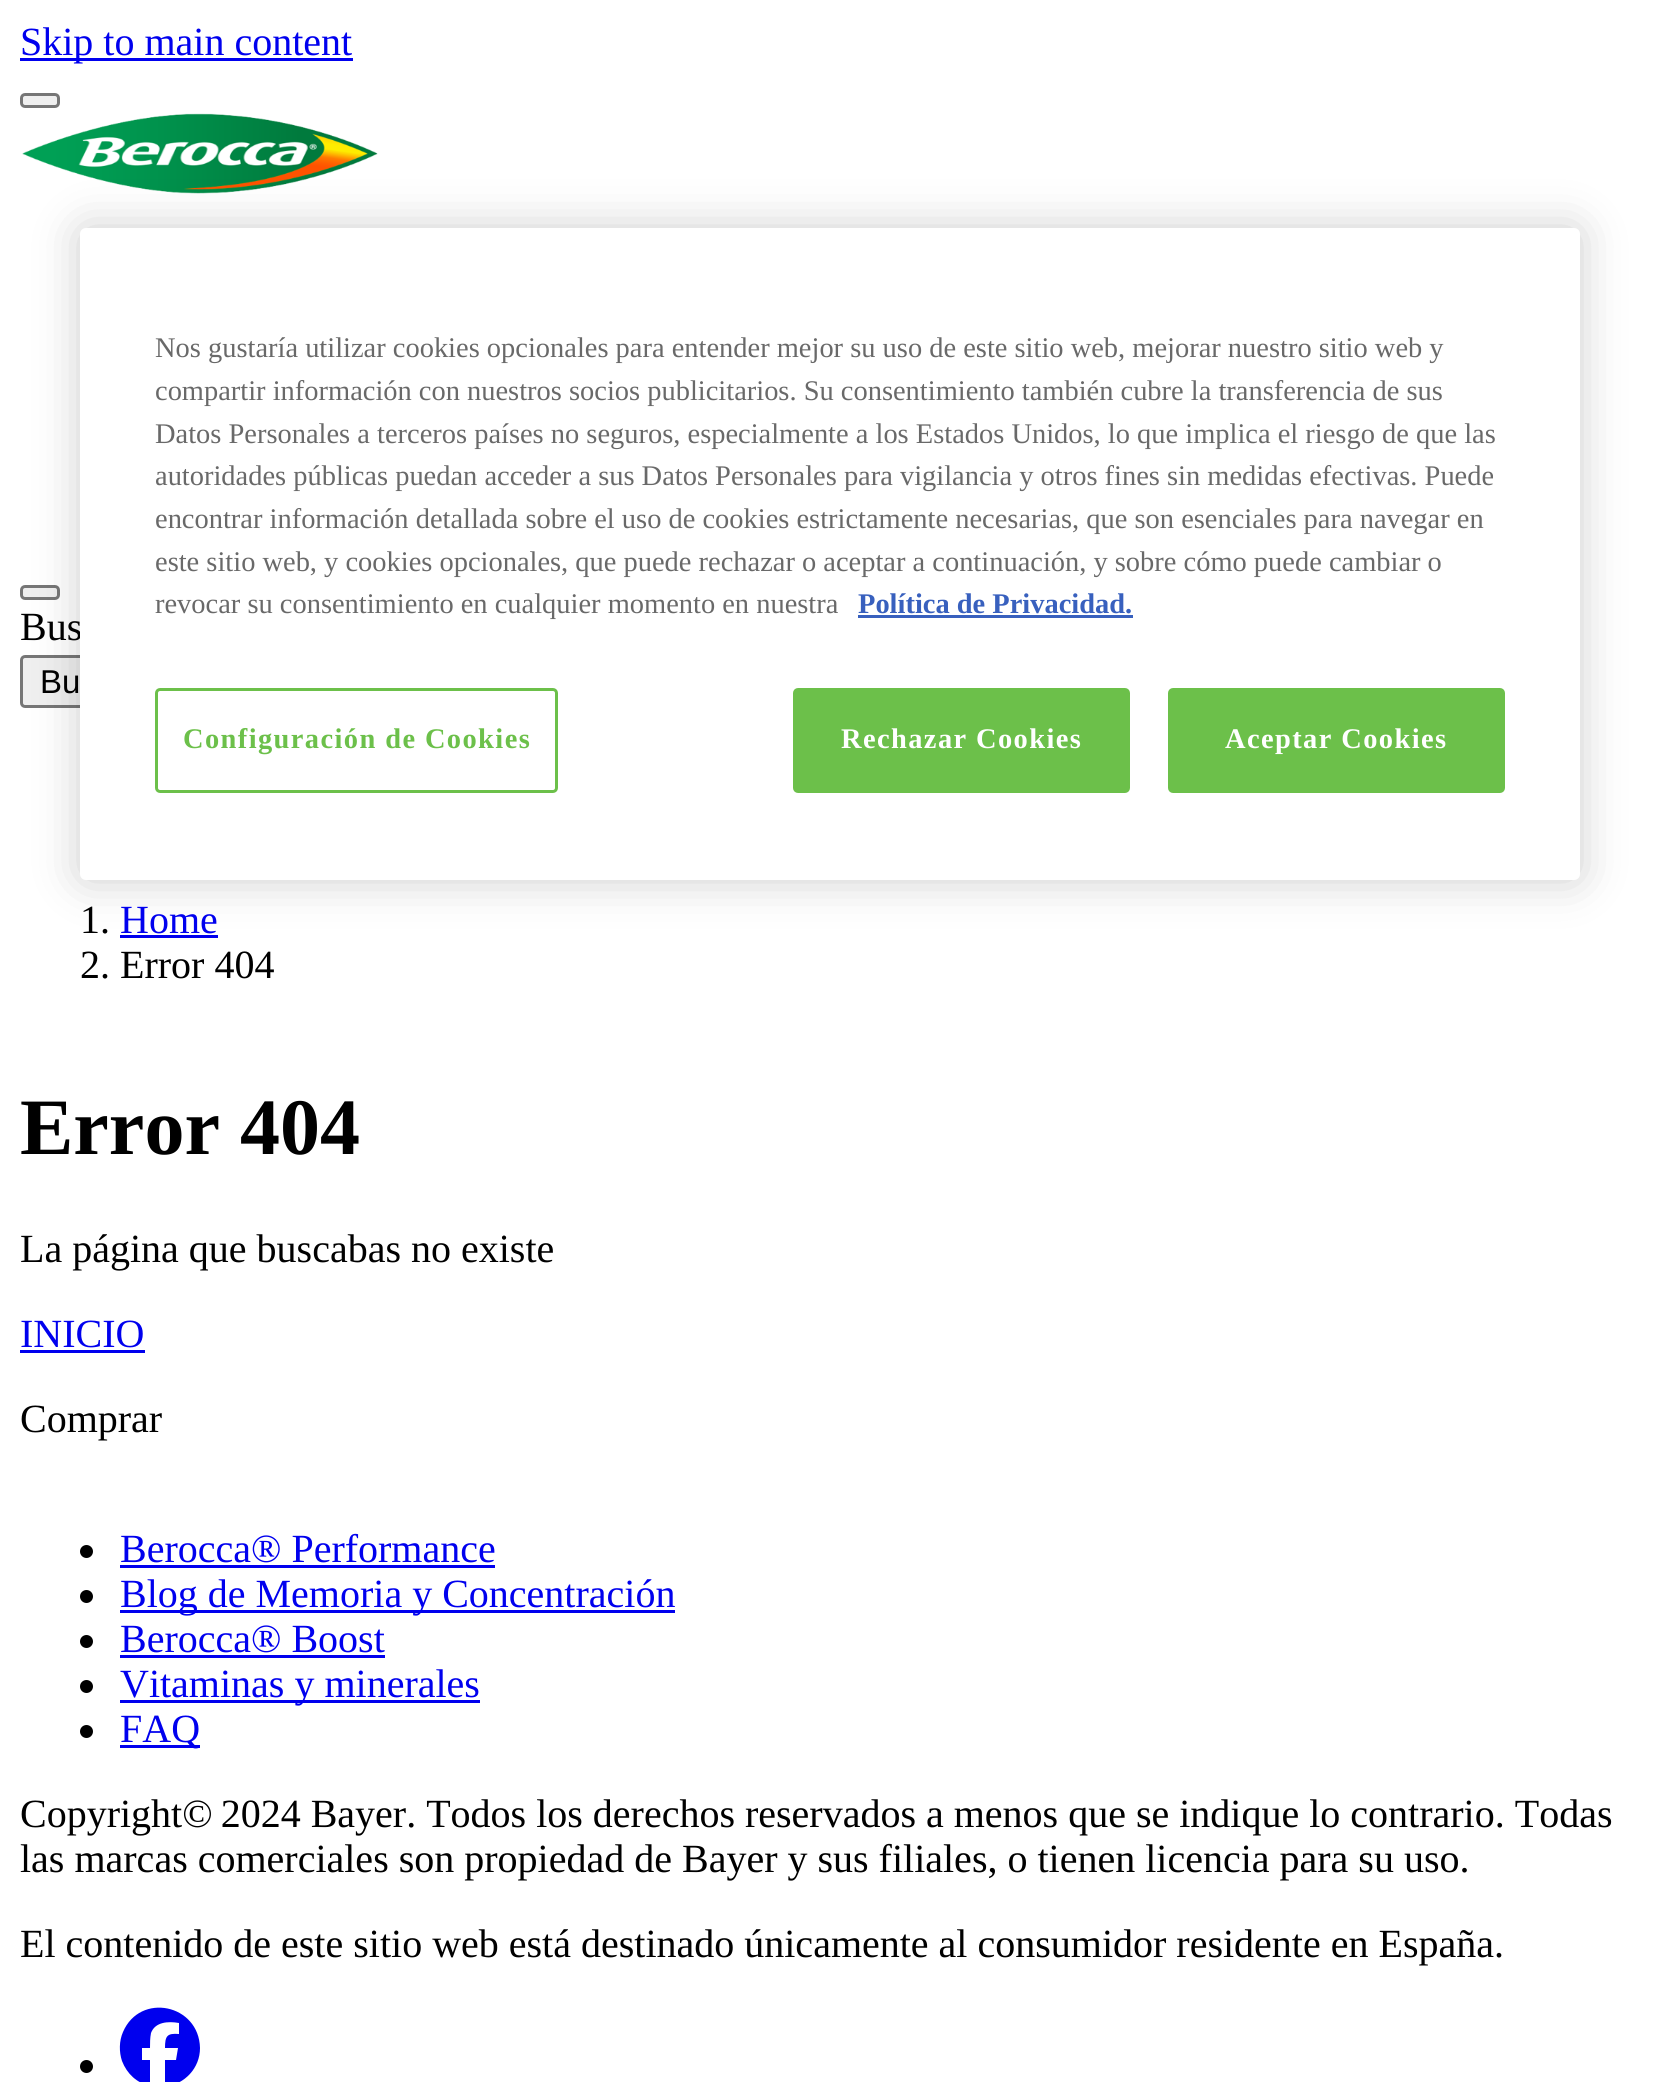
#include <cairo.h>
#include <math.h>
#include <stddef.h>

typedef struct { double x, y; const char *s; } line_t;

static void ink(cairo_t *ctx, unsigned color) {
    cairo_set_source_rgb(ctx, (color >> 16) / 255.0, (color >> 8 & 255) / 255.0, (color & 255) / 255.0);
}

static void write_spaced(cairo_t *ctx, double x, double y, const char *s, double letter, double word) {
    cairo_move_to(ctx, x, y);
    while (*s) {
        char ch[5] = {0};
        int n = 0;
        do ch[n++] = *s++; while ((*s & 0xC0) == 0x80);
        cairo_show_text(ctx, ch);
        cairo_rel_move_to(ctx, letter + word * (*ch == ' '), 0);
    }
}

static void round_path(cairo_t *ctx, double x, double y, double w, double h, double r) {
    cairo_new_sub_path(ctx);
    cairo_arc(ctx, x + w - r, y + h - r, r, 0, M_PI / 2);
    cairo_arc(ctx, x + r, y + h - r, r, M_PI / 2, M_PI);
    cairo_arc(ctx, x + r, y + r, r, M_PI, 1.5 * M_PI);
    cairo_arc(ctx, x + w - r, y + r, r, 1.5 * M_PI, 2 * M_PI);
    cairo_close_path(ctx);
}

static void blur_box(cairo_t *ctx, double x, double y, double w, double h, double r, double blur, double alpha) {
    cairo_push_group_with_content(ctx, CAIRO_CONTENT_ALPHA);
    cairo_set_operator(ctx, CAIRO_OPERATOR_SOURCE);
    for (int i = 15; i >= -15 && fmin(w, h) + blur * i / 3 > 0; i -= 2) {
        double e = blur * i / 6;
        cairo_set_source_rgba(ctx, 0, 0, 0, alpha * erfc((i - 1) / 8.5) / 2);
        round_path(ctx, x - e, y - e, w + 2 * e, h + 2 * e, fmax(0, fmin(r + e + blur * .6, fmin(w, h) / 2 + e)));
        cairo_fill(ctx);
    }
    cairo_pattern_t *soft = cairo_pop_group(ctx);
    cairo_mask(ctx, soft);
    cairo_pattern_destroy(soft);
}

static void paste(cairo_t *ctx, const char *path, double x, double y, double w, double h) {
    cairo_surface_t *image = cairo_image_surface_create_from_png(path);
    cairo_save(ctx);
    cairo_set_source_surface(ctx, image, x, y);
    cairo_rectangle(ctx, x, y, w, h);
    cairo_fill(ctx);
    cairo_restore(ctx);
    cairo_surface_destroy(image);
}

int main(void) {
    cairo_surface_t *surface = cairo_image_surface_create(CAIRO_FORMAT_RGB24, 1659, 2082);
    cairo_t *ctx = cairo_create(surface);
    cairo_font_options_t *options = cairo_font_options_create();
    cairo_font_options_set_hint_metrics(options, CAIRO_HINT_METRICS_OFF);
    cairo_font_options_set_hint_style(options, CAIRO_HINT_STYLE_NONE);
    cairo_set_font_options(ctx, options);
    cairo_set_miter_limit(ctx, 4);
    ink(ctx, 0xFFFFFF);
    cairo_paint(ctx);
    ink(ctx, 0x0000EE);
    cairo_rectangle(ctx, 20, 58, 333, 3);
    cairo_fill(ctx);
    cairo_select_font_face(ctx, "Liberation Serif", CAIRO_FONT_SLANT_NORMAL, CAIRO_FONT_WEIGHT_NORMAL);
    cairo_set_font_size(ctx, 40);
    cairo_move_to(ctx, 20, 55);
    cairo_show_text(ctx, "Skip to main content");
    paste(ctx, "media/1.png", 22, 113, 356, 81);
    ink(ctx, 0xEFEFEF);
    round_path(ctx, 21.5, 586.5, 37, 12, 3.5);
    cairo_fill_preserve(ctx);
    ink(ctx, 0x767676);
    cairo_set_line_width(ctx, 3);
    cairo_stroke(ctx);
    ink(ctx, 0xEFEFEF);
    round_path(ctx, 21.5, 656.5, 140, 50, 3.5);
    cairo_fill_preserve(ctx);
    ink(ctx, 0x767676);
    cairo_stroke(ctx);
    ink(ctx, 0x0000EE);
    cairo_rectangle(ctx, 120, 935, 98, 3);
    cairo_fill(ctx);
    ink(ctx, 0x000000);
    blur_box(ctx, 80, 228, 1500, 652, 6, 22.5, 0.2);
    ink(ctx, 0x000000);
    cairo_move_to(ctx, 20, 640);
    cairo_show_text(ctx, "Bus");
    ink(ctx, 0xFFFFFF);
    round_path(ctx, 80, 228, 1500, 652, 6);
    cairo_fill(ctx);
    cairo_set_font_size(ctx, 28.45);
    ink(ctx, 0x696969);
    {
        static const line_t items[] = {
            {155, 357, "Nos gustaría utilizar cookies opcionales para entender mejor su uso de este sitio web, mejorar nuestro sitio web y"},
            {155, 400, "compartir información con nuestros socios publicitarios. Su consentimiento también cubre la transferencia de sus"},
            {155, 443, "Datos Personales a terceros países no seguros, especialmente a los Estados Unidos, lo que implica el riesgo de que las"},
            {155, 485, "autoridades públicas puedan acceder a sus Datos Personales para vigilancia y otros fines sin medidas efectivas. Puede"},
            {155, 528, "encontrar información detallada sobre el uso de cookies estrictamente necesarias, que son esenciales para navegar en"},
            {155, 571, "este sitio web, y cookies opcionales, que puede rechazar o aceptar a continuación, y sobre cómo puede cambiar o"},
            {155, 613, "revocar su consentimiento en cualquier momento en nuestra"},
        };
        for (size_t i = 0; i < sizeof items / sizeof *items; i++) {
            cairo_move_to(ctx, items[i].x, items[i].y);
            cairo_show_text(ctx, items[i].s);
        }
    }
    cairo_select_font_face(ctx, "Liberation Serif", CAIRO_FONT_SLANT_NORMAL, CAIRO_FONT_WEIGHT_BOLD);
    ink(ctx, 0x3860BE);
    cairo_move_to(ctx, 858, 613);
    cairo_show_text(ctx, "Política de Privacidad.");
    cairo_rectangle(ctx, 858, 615, 275, 3);
    cairo_fill(ctx);
    round_path(ctx, 156.5, 689.5, 400, 102, 3.5);
    ink(ctx, 0x6CC04A);
    cairo_stroke(ctx);
    write_spaced(ctx, 183, 748, "Configuración de Cookies", 1.4, 0);
    round_path(ctx, 794.5, 689.5, 334, 102, 3.5);
    cairo_fill_preserve(ctx);
    cairo_stroke(ctx);
    ink(ctx, 0xFFFFFF);
    write_spaced(ctx, 841, 748, "Rechazar Cookies", 1.4, 0);
    ink(ctx, 0x6CC04A);
    round_path(ctx, 1169.5, 689.5, 334, 102, 3.5);
    cairo_fill_preserve(ctx);
    cairo_stroke(ctx);
    ink(ctx, 0xFFFFFF);
    write_spaced(ctx, 1225, 748, "Aceptar Cookies", 1.4, 0);
    ink(ctx, 0xEFEFEF);
    round_path(ctx, 21.5, 94.5, 37, 12, 3.5);
    cairo_fill_preserve(ctx);
    ink(ctx, 0x767676);
    cairo_stroke(ctx);
    cairo_select_font_face(ctx, "Liberation Sans", CAIRO_FONT_SLANT_NORMAL, CAIRO_FONT_WEIGHT_NORMAL);
    cairo_set_font_size(ctx, 33);
    ink(ctx, 0x000000);
    cairo_move_to(ctx, 40, 693);
    cairo_show_text(ctx, "Bu");
    cairo_select_font_face(ctx, "Liberation Serif", CAIRO_FONT_SLANT_NORMAL, CAIRO_FONT_WEIGHT_NORMAL);
    cairo_set_font_size(ctx, 40);
    cairo_move_to(ctx, 80, 933);
    cairo_show_text(ctx, "1.");
    ink(ctx, 0x0000EE);
    cairo_move_to(ctx, 120, 933);
    cairo_show_text(ctx, "Home");
    ink(ctx, 0x000000);
    cairo_move_to(ctx, 80, 978);
    cairo_show_text(ctx, "2. Error 404");
    cairo_select_font_face(ctx, "Liberation Serif", CAIRO_FONT_SLANT_NORMAL, CAIRO_FONT_WEIGHT_BOLD);
    cairo_set_font_size(ctx, 80);
    cairo_move_to(ctx, 20, 1154);
    cairo_show_text(ctx, "Error 404");
    cairo_select_font_face(ctx, "Liberation Serif", CAIRO_FONT_SLANT_NORMAL, CAIRO_FONT_WEIGHT_NORMAL);
    cairo_set_font_size(ctx, 40);
    cairo_move_to(ctx, 20, 1262);
    cairo_show_text(ctx, "La página que buscabas no existe");
    ink(ctx, 0x0000EE);
    cairo_move_to(ctx, 20, 1347);
    cairo_show_text(ctx, "INICIO");
    cairo_rectangle(ctx, 20, 1350, 125, 3);
    cairo_fill(ctx);
    ink(ctx, 0x000000);
    cairo_move_to(ctx, 20, 1432);
    cairo_show_text(ctx, "Comprar");
    cairo_new_path(ctx);
    cairo_arc(ctx, 86.5, 1551.5, 6.5, 0, 2 * M_PI);
    cairo_fill(ctx);
    ink(ctx, 0x0000EE);
    cairo_move_to(ctx, 120, 1562);
    cairo_show_text(ctx, "Berocca® Performance");
    cairo_rectangle(ctx, 120, 1565, 375, 3);
    cairo_fill(ctx);
    ink(ctx, 0x000000);
    cairo_arc(ctx, 86.5, 1596.5, 6.5, 0, 2 * M_PI);
    cairo_fill(ctx);
    ink(ctx, 0x0000EE);
    cairo_rectangle(ctx, 120, 1610, 555, 3);
    cairo_fill(ctx);
    cairo_move_to(ctx, 120, 1607);
    cairo_show_text(ctx, "Blog de Memoria y Concentración");
    ink(ctx, 0x000000);
    cairo_new_path(ctx);
    cairo_arc(ctx, 86.5, 1641.5, 6.5, 0, 2 * M_PI);
    cairo_fill(ctx);
    ink(ctx, 0x0000EE);
    cairo_move_to(ctx, 120, 1652);
    cairo_show_text(ctx, "Berocca® Boost");
    cairo_rectangle(ctx, 120, 1655, 265, 3);
    cairo_fill(ctx);
    ink(ctx, 0x000000);
    cairo_arc(ctx, 86.5, 1686.5, 6.5, 0, 2 * M_PI);
    cairo_fill(ctx);
    ink(ctx, 0x0000EE);
    cairo_rectangle(ctx, 120, 1700, 360, 3);
    cairo_fill(ctx);
    cairo_move_to(ctx, 120, 1697);
    cairo_show_text(ctx, "Vitaminas y minerales");
    ink(ctx, 0x000000);
    cairo_new_path(ctx);
    cairo_arc(ctx, 86.5, 1731.5, 6.5, 0, 2 * M_PI);
    cairo_fill(ctx);
    ink(ctx, 0x0000EE);
    cairo_rectangle(ctx, 120, 1745, 80, 3);
    cairo_fill(ctx);
    cairo_move_to(ctx, 120, 1742);
    cairo_show_text(ctx, "FAQ");
    ink(ctx, 0x000000);
    {
        static const line_t items[] = {
            {20, 1827, "Copyright© 2024 Bayer. Todos los derechos reservados a menos que se indique lo contrario. Todas"},
            {20, 1872, "las marcas comerciales son propiedad de Bayer y sus filiales, o tienen licencia para su uso."},
            {20, 1957, "El contenido de este sitio web está destinado únicamente al consumidor residente en España."},
        };
        for (size_t i = 0; i < sizeof items / sizeof *items; i++) {
            cairo_move_to(ctx, items[i].x, items[i].y);
            cairo_show_text(ctx, items[i].s);
        }
    }
    cairo_new_path(ctx);
    cairo_arc(ctx, 86.5, 2066.5, 6.5, 0, 2 * M_PI);
    cairo_fill(ctx);
    ink(ctx, 0x0000EE);
    cairo_new_path(ctx);
    cairo_move_to(ctx, 200, 2048);
    cairo_curve_to(ctx, 199, 2004, 140, 1992, 123, 2032);
    cairo_curve_to(ctx, 119, 2041, 119, 2052, 122, 2061);
    cairo_curve_to(ctx, 127, 2074, 137, 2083, 150, 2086);
    cairo_line_to(ctx, 150, 2060);
    cairo_line_to(ctx, 142, 2060);
    cairo_line_to(ctx, 142, 2048);
    cairo_line_to(ctx, 150, 2048);
    cairo_curve_to(ctx, 150, 2043, 150, 2038, 151, 2033);
    cairo_curve_to(ctx, 155, 2022, 168, 2021, 179, 2023);
    cairo_line_to(ctx, 179, 2034);
    cairo_curve_to(ctx, 167, 2033, 165, 2036, 165, 2048);
    cairo_line_to(ctx, 178, 2048);
    cairo_line_to(ctx, 176, 2060);
    cairo_line_to(ctx, 165, 2060);
    cairo_line_to(ctx, 165, 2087);
    cairo_curve_to(ctx, 185, 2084, 200, 2068, 200, 2048);
    cairo_close_path(ctx);
    cairo_fill(ctx);
    cairo_surface_write_to_png(surface, "image.png");
    cairo_font_options_destroy(options);
    cairo_destroy(ctx);
    cairo_surface_destroy(surface);
    return 0;
}
